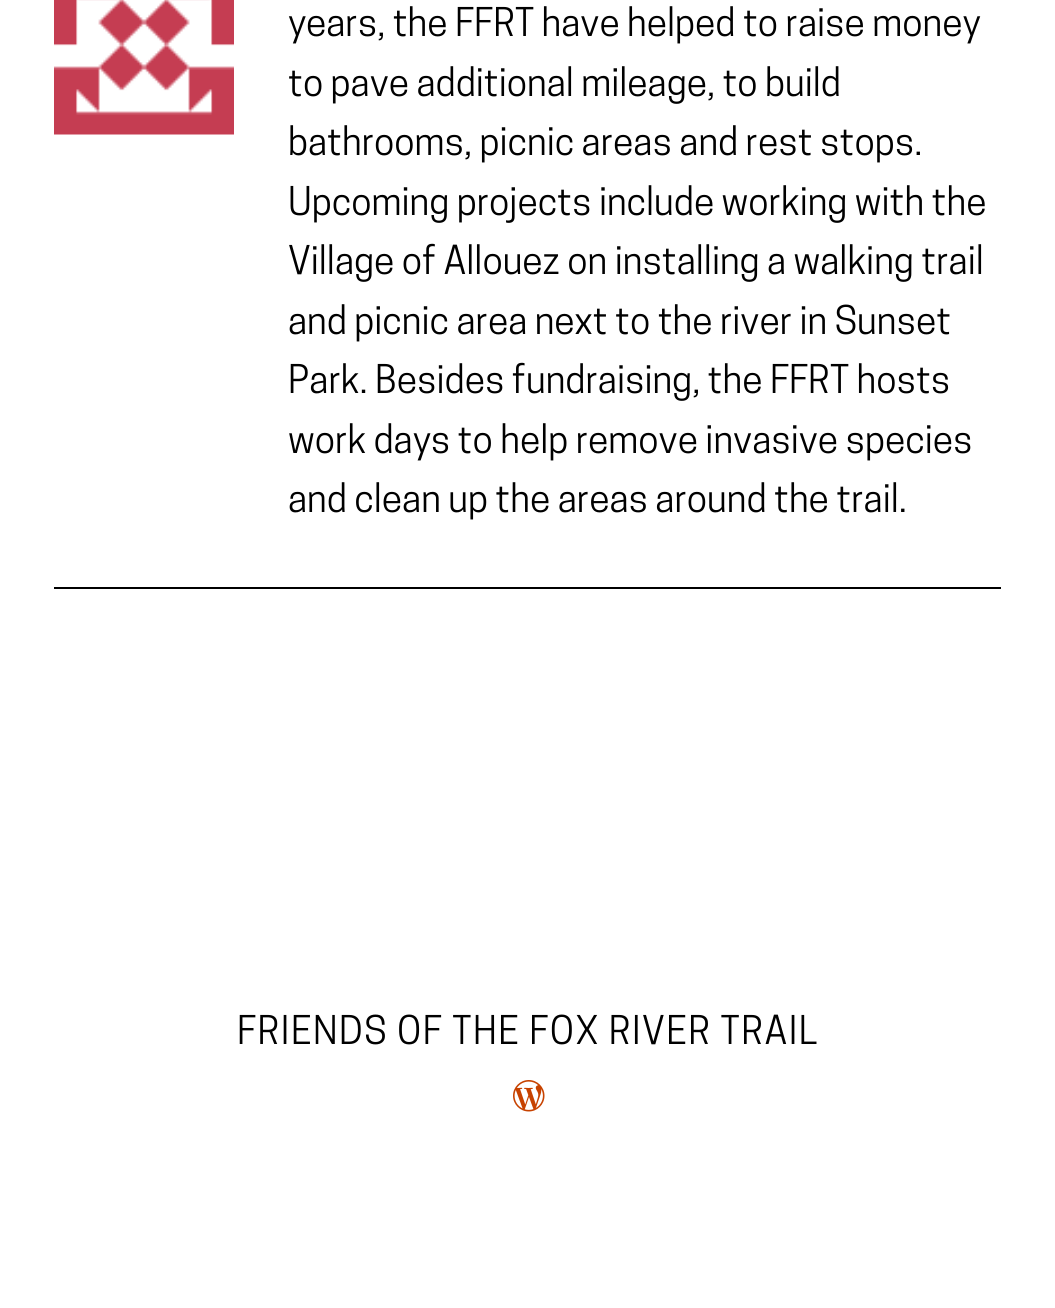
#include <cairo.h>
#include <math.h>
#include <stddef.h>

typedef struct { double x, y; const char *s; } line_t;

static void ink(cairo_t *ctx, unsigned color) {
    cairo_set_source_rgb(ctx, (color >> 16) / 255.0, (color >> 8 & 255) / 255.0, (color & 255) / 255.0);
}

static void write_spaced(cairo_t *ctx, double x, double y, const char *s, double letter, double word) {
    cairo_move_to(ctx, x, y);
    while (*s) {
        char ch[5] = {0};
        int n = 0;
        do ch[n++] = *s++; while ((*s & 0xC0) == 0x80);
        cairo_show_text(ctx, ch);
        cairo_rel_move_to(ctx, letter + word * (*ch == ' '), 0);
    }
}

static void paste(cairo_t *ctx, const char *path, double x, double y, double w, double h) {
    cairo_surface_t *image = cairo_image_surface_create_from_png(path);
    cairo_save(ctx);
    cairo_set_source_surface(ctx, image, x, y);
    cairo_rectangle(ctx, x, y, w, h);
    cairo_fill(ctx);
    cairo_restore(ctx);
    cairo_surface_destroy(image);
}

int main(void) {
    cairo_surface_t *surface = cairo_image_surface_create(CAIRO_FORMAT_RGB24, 1055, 1308);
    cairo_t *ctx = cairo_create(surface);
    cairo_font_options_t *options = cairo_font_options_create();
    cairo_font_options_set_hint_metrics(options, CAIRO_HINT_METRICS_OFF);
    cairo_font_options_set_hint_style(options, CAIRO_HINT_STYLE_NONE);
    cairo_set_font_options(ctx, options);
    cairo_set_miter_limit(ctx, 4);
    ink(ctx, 0xFFFFFF);
    cairo_paint(ctx);
    paste(ctx, "media/1.png", 54, 0, 180, 135);
    cairo_select_font_face(ctx, "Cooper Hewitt", CAIRO_FONT_SLANT_NORMAL, CAIRO_FONT_WEIGHT_NORMAL);
    cairo_set_font_size(ctx, 37.25);
    ink(ctx, 0x000000);
    {
        static const line_t items[] = {
            {288, 36, "years, the FFRT have helped to raise money"},
            {288, 96, "to pave additional mileage, to build"},
            {288, 155, "bathrooms, picnic areas and rest stops."},
            {288, 215, "Upcoming projects include working with the"},
            {288, 274, "Village of Allouez on installing a walking trail"},
            {288, 334, "and picnic area next to the river in Sunset"},
            {288, 393, "Park. Besides fundraising, the FFRT hosts"},
            {288, 453, "work days to help remove invasive species"},
            {288, 512, "and clean up the areas around the trail."},
        };
        for (size_t i = 0; i < sizeof items / sizeof *items; i++) {
            cairo_move_to(ctx, items[i].x, items[i].y);
            cairo_show_text(ctx, items[i].s);
        }
    }
    cairo_rectangle(ctx, 54, 587, 947, 2);
    cairo_fill(ctx);
    write_spaced(ctx, 237, 1044, "FRIENDS OF THE FOX RIVER TRAIL", 1.5, 0);
    paste(ctx, "media/2.png", 513, 1080, 32, 32);
    cairo_surface_write_to_png(surface, "image.png");
    cairo_font_options_destroy(options);
    cairo_destroy(ctx);
    cairo_surface_destroy(surface);
    return 0;
}
